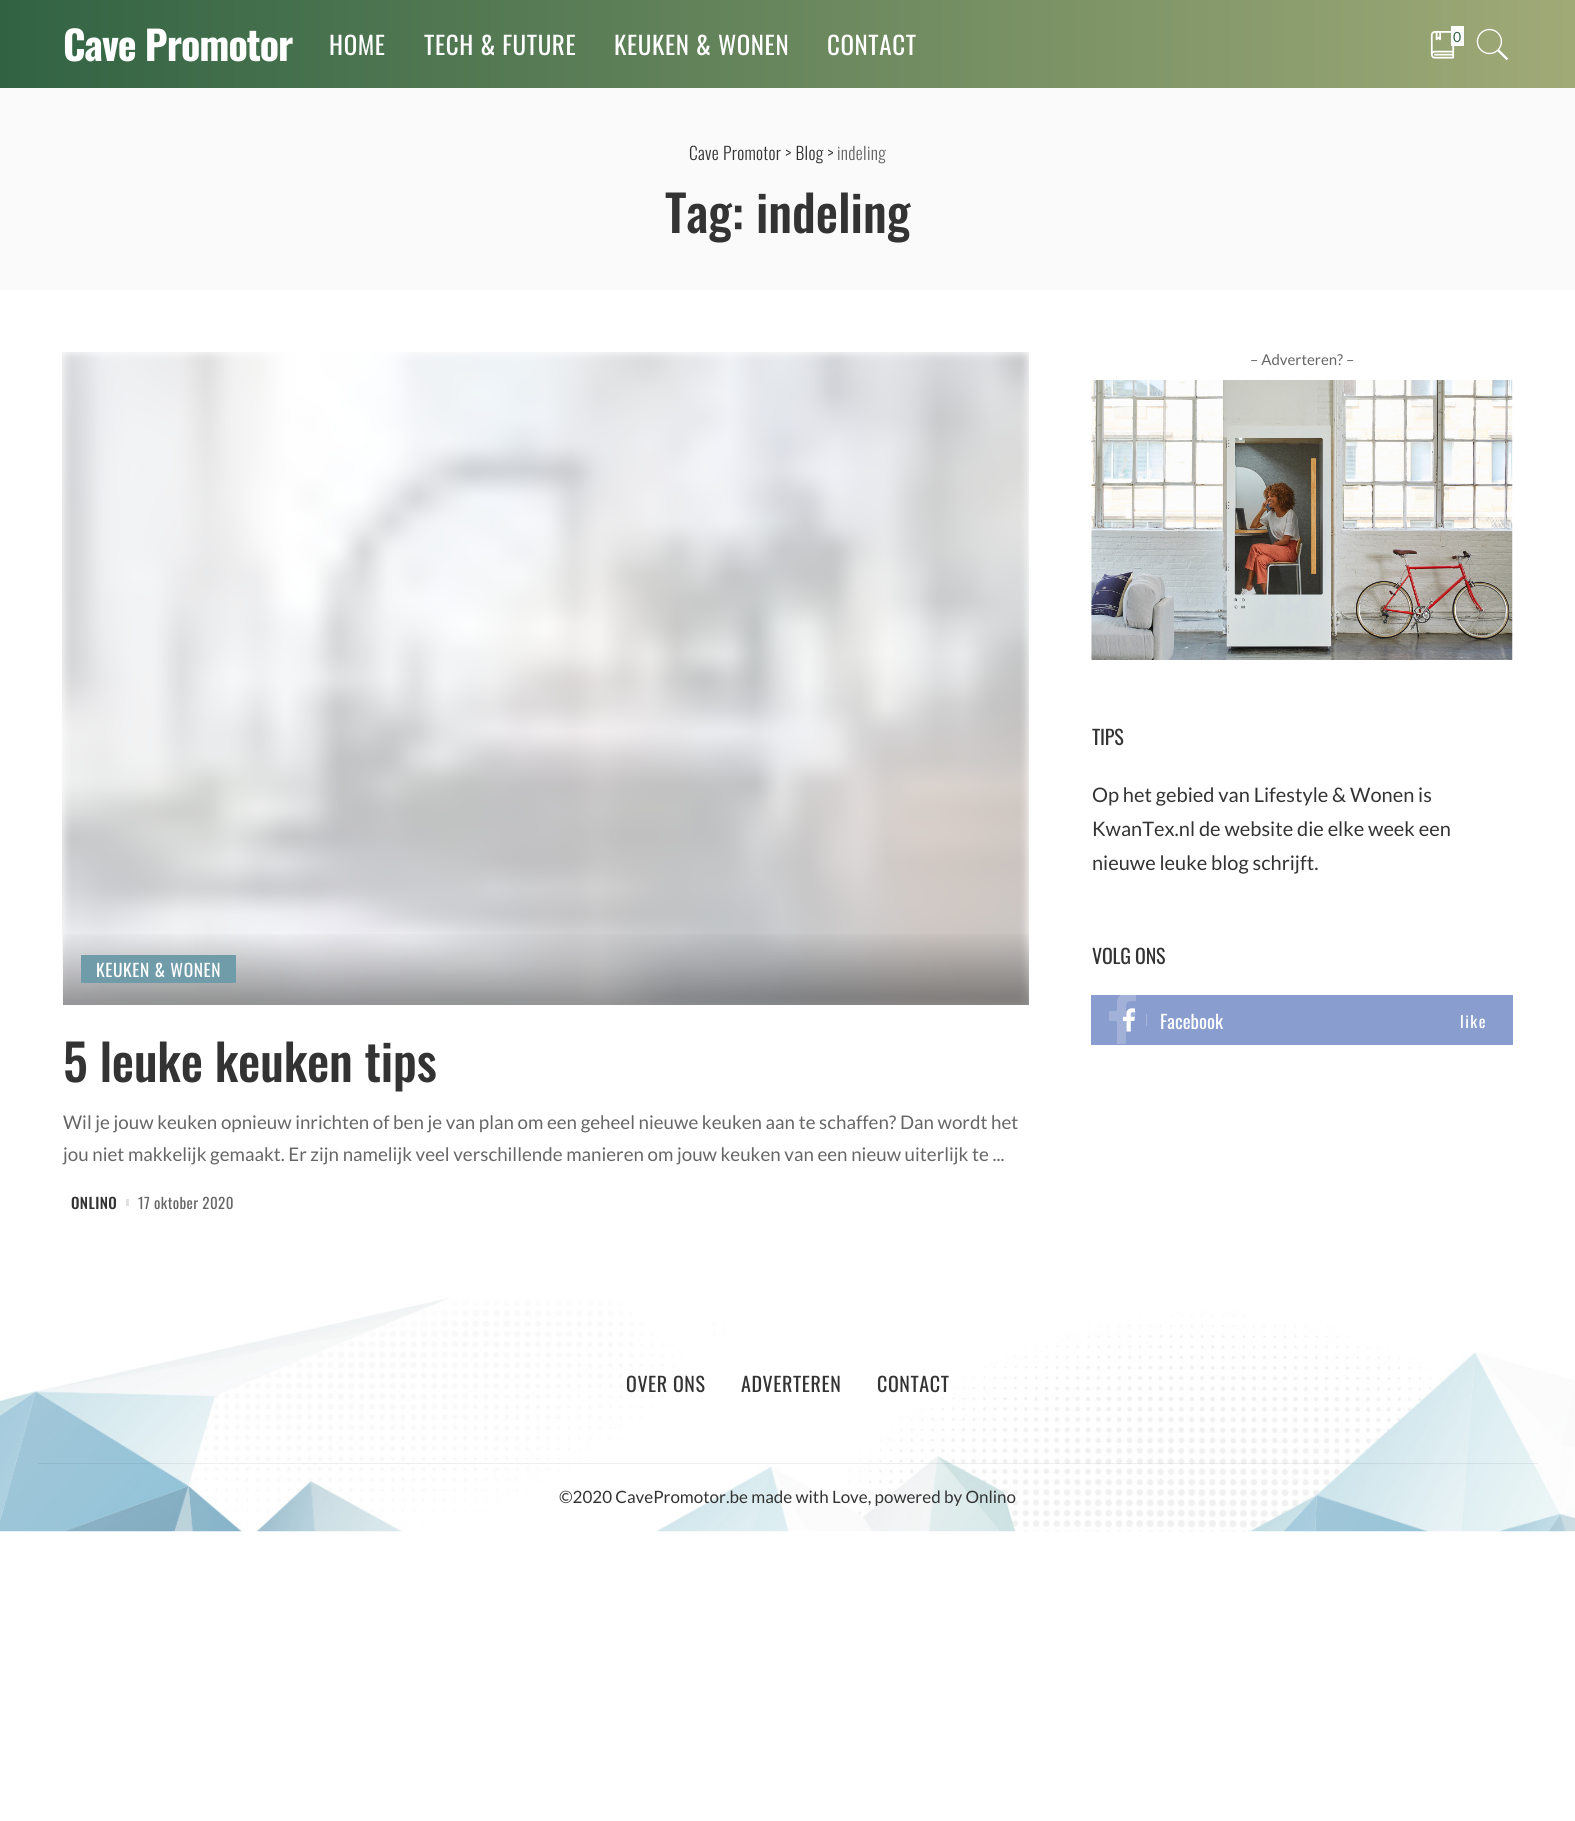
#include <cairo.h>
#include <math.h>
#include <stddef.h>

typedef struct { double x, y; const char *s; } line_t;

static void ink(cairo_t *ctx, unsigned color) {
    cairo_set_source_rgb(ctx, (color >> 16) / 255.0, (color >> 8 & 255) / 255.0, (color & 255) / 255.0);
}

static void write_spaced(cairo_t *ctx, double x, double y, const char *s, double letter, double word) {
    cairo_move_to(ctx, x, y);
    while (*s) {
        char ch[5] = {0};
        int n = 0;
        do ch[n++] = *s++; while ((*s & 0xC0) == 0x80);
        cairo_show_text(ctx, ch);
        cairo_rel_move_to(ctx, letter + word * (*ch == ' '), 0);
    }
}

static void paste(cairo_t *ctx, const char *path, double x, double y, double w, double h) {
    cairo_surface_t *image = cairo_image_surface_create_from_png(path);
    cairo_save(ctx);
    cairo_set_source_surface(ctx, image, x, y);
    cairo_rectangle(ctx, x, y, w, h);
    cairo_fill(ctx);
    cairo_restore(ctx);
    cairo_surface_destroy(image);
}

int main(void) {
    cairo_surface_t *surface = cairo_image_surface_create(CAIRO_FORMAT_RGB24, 1575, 1821);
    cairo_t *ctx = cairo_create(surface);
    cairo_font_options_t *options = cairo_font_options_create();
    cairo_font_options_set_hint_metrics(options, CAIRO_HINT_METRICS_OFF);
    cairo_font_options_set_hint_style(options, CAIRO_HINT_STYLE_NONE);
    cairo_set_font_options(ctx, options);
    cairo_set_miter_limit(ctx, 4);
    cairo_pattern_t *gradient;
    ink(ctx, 0xFFFFFF);
    cairo_paint(ctx);
    gradient = cairo_pattern_create_linear(0, 44, 1575, 44);
    cairo_pattern_add_color_stop_rgba(gradient, 0, 0.192, 0.388, 0.263, 1);
    cairo_pattern_add_color_stop_rgba(gradient, 1, 0.627, 0.667, 0.467, 1);
    cairo_set_source(ctx, gradient);
    cairo_pattern_destroy(gradient);
    cairo_rectangle(ctx, 0, 0, 1575, 88);
    cairo_fill(ctx);
    cairo_select_font_face(ctx, "Oswald", CAIRO_FONT_SLANT_NORMAL, CAIRO_FONT_WEIGHT_BOLD);
    cairo_set_font_size(ctx, 40);
    ink(ctx, 0xFFFFFF);
    write_spaced(ctx, 63, 61, "Cave Promotor", -1, 0);
    cairo_select_font_face(ctx, "Oswald", CAIRO_FONT_SLANT_NORMAL, CAIRO_FONT_WEIGHT_NORMAL);
    cairo_set_font_size(ctx, 25);
    {
        static const line_t items[] = {
            {329, 55, "HOME"},
            {424, 55, "TECH & FUTURE"},
            {614, 55, "KEUKEN & WONEN"},
            {827, 55, "CONTACT"},
        };
        for (size_t i = 0; i < sizeof items / sizeof *items; i++) {
            write_spaced(ctx, items[i].x, items[i].y, items[i].s, 0.6, 0);
        }
    }
    paste(ctx, "media/1.png", 1430, 31, 25, 28);
    cairo_rectangle(ctx, 1451, 26, 13, 20);
    cairo_fill(ctx);
    cairo_select_font_face(ctx, "Lato", CAIRO_FONT_SLANT_NORMAL, CAIRO_FONT_WEIGHT_NORMAL);
    cairo_set_font_size(ctx, 14);
    ink(ctx, 0x316343);
    cairo_move_to(ctx, 1453, 42);
    cairo_show_text(ctx, "0");
    paste(ctx, "media/2.png", 1476, 28, 33, 33);
    ink(ctx, 0xFAFAFA);
    cairo_rectangle(ctx, 0, 88, 1575, 202);
    cairo_fill(ctx);
    cairo_select_font_face(ctx, "Oswald Light", CAIRO_FONT_SLANT_NORMAL, CAIRO_FONT_WEIGHT_NORMAL);
    cairo_set_font_size(ctx, 17.5);
    ink(ctx, 0x333333);
    write_spaced(ctx, 689, 160, "Cave Promotor > Blog >", 0.3, 0);
    ink(ctx, 0x666666);
    write_spaced(ctx, 837, 160, "indeling", 0.3, 0);
    cairo_select_font_face(ctx, "Oswald Medium", CAIRO_FONT_SLANT_NORMAL, CAIRO_FONT_WEIGHT_NORMAL);
    cairo_set_font_size(ctx, 50);
    ink(ctx, 0x333333);
    cairo_move_to(ctx, 665, 233);
    cairo_show_text(ctx, "Tag: indeling");
    cairo_select_font_face(ctx, "Lato", CAIRO_FONT_SLANT_NORMAL, CAIRO_FONT_WEIGHT_NORMAL);
    cairo_set_font_size(ctx, 15);
    ink(ctx, 0x666666);
    cairo_move_to(ctx, 1250, 365);
    cairo_show_text(ctx, "– Adverteren? –");
    paste(ctx, "media/3.png", 1091, 380, 422, 280);
    cairo_select_font_face(ctx, "Oswald", CAIRO_FONT_SLANT_NORMAL, CAIRO_FONT_WEIGHT_NORMAL);
    cairo_set_font_size(ctx, 20);
    ink(ctx, 0x333333);
    write_spaced(ctx, 1092, 745, "TIPS", -0.2, 0);
    cairo_select_font_face(ctx, "Lato", CAIRO_FONT_SLANT_NORMAL, CAIRO_FONT_WEIGHT_NORMAL);
    {
        static const line_t items[] = {
            {1092, 802, "Op het gebied van Lifestyle & Wonen is"},
            {1092, 836, "KwanTex.nl de website die elke week een"},
            {1092, 870, "nieuwe leuke blog schrijft."},
        };
        for (size_t i = 0; i < sizeof items / sizeof *items; i++) {
            cairo_move_to(ctx, items[i].x, items[i].y);
            cairo_show_text(ctx, items[i].s);
        }
    }
    cairo_select_font_face(ctx, "Oswald", CAIRO_FONT_SLANT_NORMAL, CAIRO_FONT_WEIGHT_NORMAL);
    write_spaced(ctx, 1092, 964, "VOLG ONS", -0.2, 0);
    ink(ctx, 0x899DCE);
    cairo_rectangle(ctx, 1091, 995, 422, 50);
    cairo_fill(ctx);
    cairo_save(ctx);
    cairo_rectangle(ctx, 1091, 995, 422, 50);
    cairo_clip(ctx);
    ink(ctx, 0xA1B1D8);
    cairo_new_path(ctx);
    cairo_move_to(ctx, 1136, 992);
    cairo_line_to(ctx, 1136, 1001);
    cairo_curve_to(ctx, 1126, 1001, 1126, 1001, 1126, 1011);
    cairo_line_to(ctx, 1136, 1011);
    cairo_line_to(ctx, 1134, 1021);
    cairo_line_to(ctx, 1126, 1021);
    cairo_line_to(ctx, 1126, 1044);
    cairo_line_to(ctx, 1117, 1044);
    cairo_line_to(ctx, 1117, 1021);
    cairo_line_to(ctx, 1109, 1021);
    cairo_line_to(ctx, 1109, 1011);
    cairo_line_to(ctx, 1117, 1011);
    cairo_line_to(ctx, 1117, 1001);
    cairo_curve_to(ctx, 1119, 992, 1128, 992, 1136, 992);
    cairo_close_path(ctx);
    cairo_fill(ctx);
    cairo_restore(ctx);
    paste(ctx, "media/4.png", 1122, 1008, 13, 24);
    ink(ctx, 0xA7B6DA);
    cairo_rectangle(ctx, 1146, 1014, 1, 12);
    cairo_fill(ctx);
    cairo_set_font_size(ctx, 18.75);
    ink(ctx, 0xFFFFFF);
    cairo_move_to(ctx, 1160, 1029);
    cairo_show_text(ctx, "Facebook");
    cairo_set_font_size(ctx, 16);
    write_spaced(ctx, 1460, 1028, "like", 1.5, 0);
    paste(ctx, "media/5.png", 62, 352, 967, 653);
    gradient = cairo_pattern_create_linear(546, 930, 546, 1005);
    cairo_pattern_add_color_stop_rgba(gradient, 0, 0, 0, 0, 0);
    cairo_pattern_add_color_stop_rgba(gradient, 1, 0, 0, 0, 0.4);
    cairo_set_source(ctx, gradient);
    cairo_pattern_destroy(gradient);
    cairo_rectangle(ctx, 63, 934, 966, 71);
    cairo_fill(ctx);
    ink(ctx, 0x709CAA);
    cairo_rectangle(ctx, 81, 955, 155, 28);
    cairo_fill(ctx);
    cairo_set_font_size(ctx, 17.5);
    ink(ctx, 0xFFFFFF);
    write_spaced(ctx, 96, 977, "KEUKEN & WONEN", 0.6, 0);
    cairo_select_font_face(ctx, "Oswald Medium", CAIRO_FONT_SLANT_NORMAL, CAIRO_FONT_WEIGHT_NORMAL);
    cairo_set_font_size(ctx, 50);
    ink(ctx, 0x333333);
    write_spaced(ctx, 63, 1082, "5 leuke keuken tips", -0.2, 0);
    cairo_select_font_face(ctx, "Lato", CAIRO_FONT_SLANT_NORMAL, CAIRO_FONT_WEIGHT_NORMAL);
    cairo_set_font_size(ctx, 18.75);
    ink(ctx, 0x666666);
    cairo_move_to(ctx, 63, 1129);
    cairo_show_text(ctx, "Wil je jouw keuken opnieuw inrichten of ben je van plan om een geheel nieuwe keuken aan te schaffen? Dan wordt het");
    cairo_move_to(ctx, 63, 1161);
    cairo_show_text(ctx, "jou niet makkelijk gemaakt. Er zijn namelijk veel verschillende manieren om jouw keuken van een nieuw uiterlijk te ...");
    cairo_select_font_face(ctx, "Oswald Medium", CAIRO_FONT_SLANT_NORMAL, CAIRO_FONT_WEIGHT_NORMAL);
    cairo_set_font_size(ctx, 15);
    ink(ctx, 0x333333);
    write_spaced(ctx, 71, 1209, "ONLINO", 0.4, 0);
    ink(ctx, 0xE0E0E0);
    cairo_rectangle(ctx, 126, 1199, 3, 7);
    cairo_fill(ctx);
    cairo_select_font_face(ctx, "Oswald", CAIRO_FONT_SLANT_NORMAL, CAIRO_FONT_WEIGHT_NORMAL);
    ink(ctx, 0x666666);
    write_spaced(ctx, 138, 1209, "17 oktober 2020", 0.4, 0);
    paste(ctx, "media/6.png", 0, 1298, 1575, 234);
    cairo_set_font_size(ctx, 20);
    ink(ctx, 0x333333);
    {
        static const line_t items[] = {
            {626, 1392, "OVER ONS"},
            {741, 1392, "ADVERTEREN"},
            {877, 1392, "CONTACT"},
        };
        for (size_t i = 0; i < sizeof items / sizeof *items; i++) {
            write_spaced(ctx, items[i].x, items[i].y, items[i].s, 0.6, 0);
        }
    }
    cairo_set_source_rgba(ctx, 0, 0, 0, 0.07);
    cairo_rectangle(ctx, 38, 1463, 1500, 1);
    cairo_fill(ctx);
    cairo_select_font_face(ctx, "Lato", CAIRO_FONT_SLANT_NORMAL, CAIRO_FONT_WEIGHT_NORMAL);
    cairo_set_font_size(ctx, 17);
    ink(ctx, 0x333333);
    cairo_move_to(ctx, 559, 1503);
    cairo_show_text(ctx, "©2020 CavePromotor.be made with Love, powered by Onlino");
    cairo_surface_write_to_png(surface, "image.png");
    cairo_font_options_destroy(options);
    cairo_destroy(ctx);
    cairo_surface_destroy(surface);
    return 0;
}
